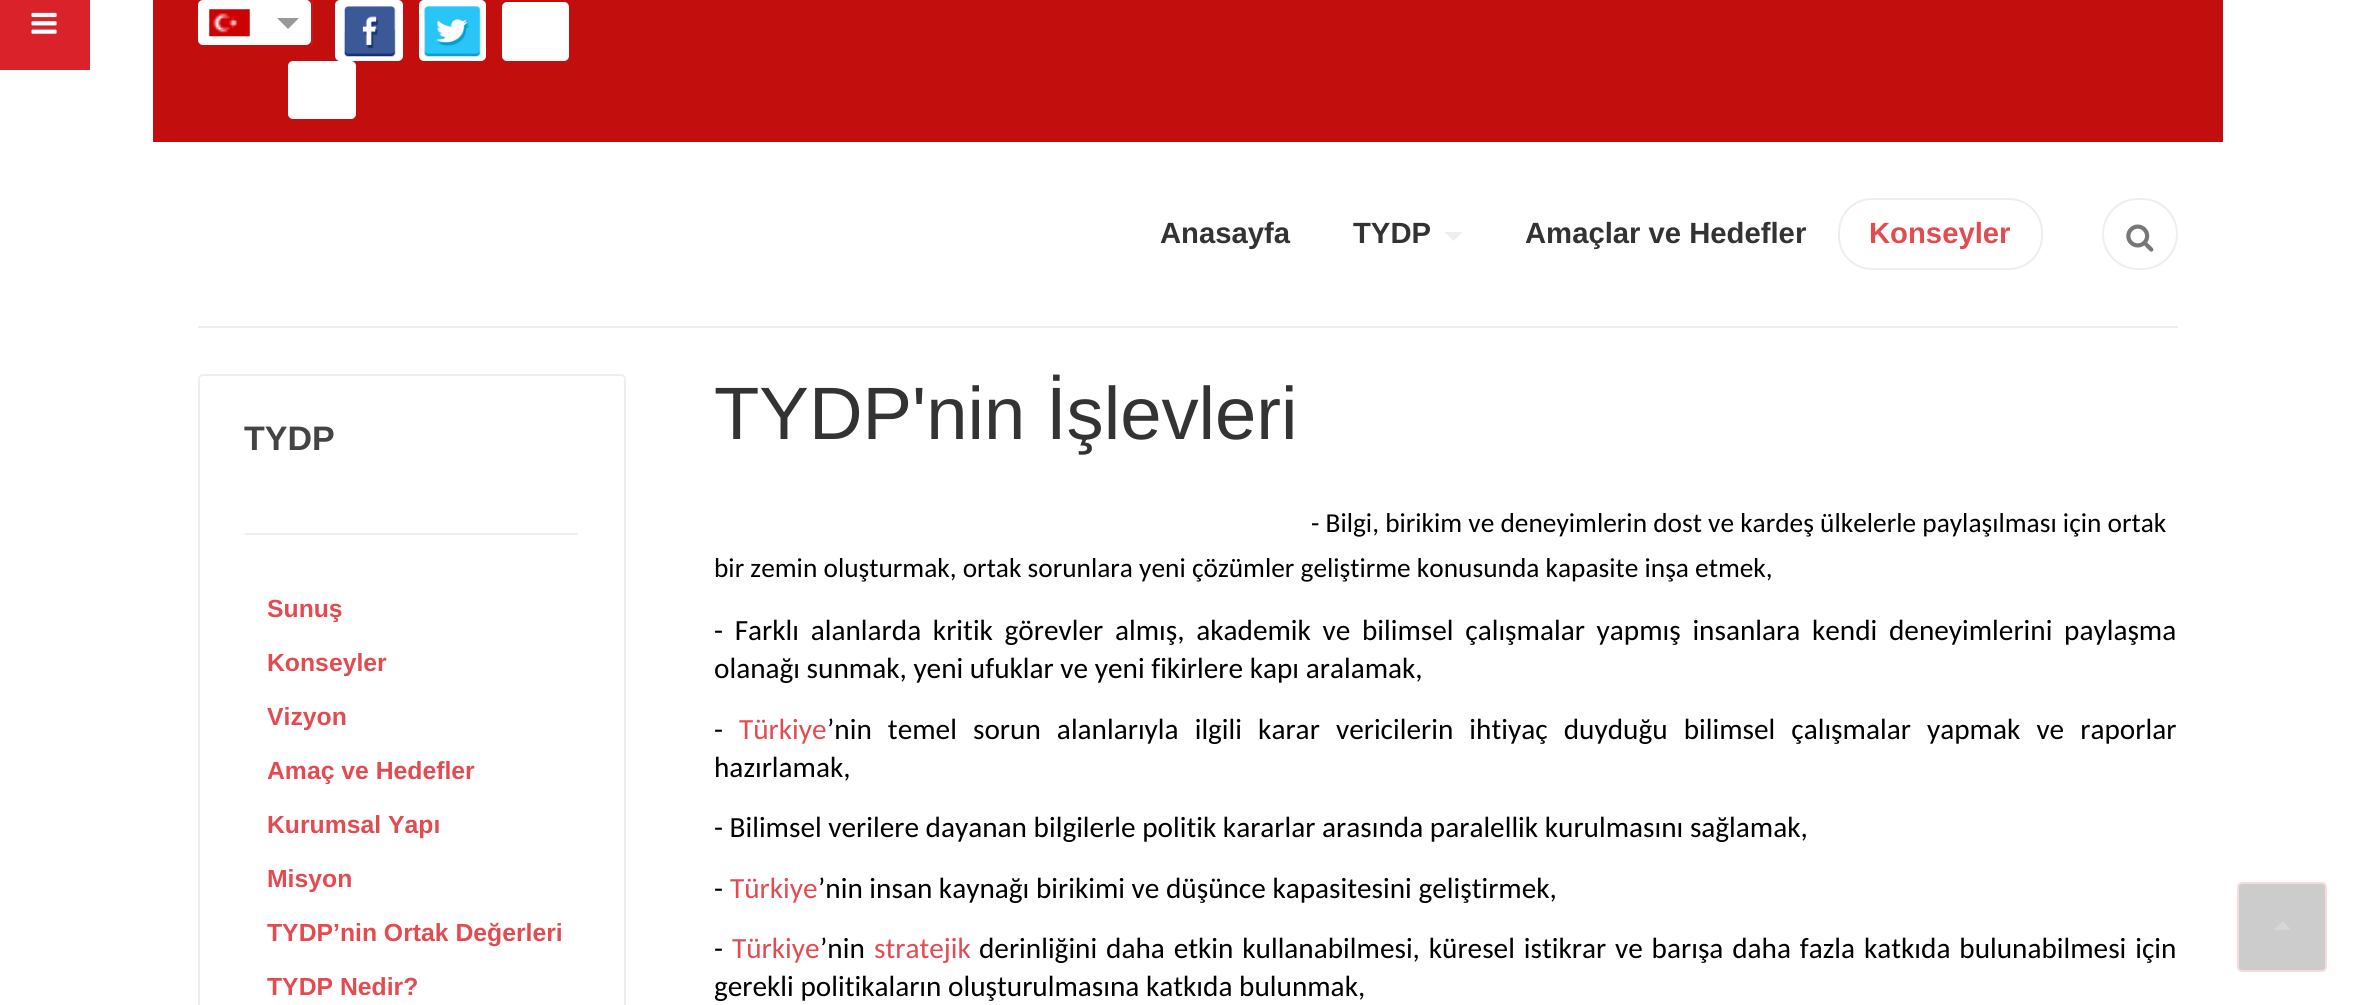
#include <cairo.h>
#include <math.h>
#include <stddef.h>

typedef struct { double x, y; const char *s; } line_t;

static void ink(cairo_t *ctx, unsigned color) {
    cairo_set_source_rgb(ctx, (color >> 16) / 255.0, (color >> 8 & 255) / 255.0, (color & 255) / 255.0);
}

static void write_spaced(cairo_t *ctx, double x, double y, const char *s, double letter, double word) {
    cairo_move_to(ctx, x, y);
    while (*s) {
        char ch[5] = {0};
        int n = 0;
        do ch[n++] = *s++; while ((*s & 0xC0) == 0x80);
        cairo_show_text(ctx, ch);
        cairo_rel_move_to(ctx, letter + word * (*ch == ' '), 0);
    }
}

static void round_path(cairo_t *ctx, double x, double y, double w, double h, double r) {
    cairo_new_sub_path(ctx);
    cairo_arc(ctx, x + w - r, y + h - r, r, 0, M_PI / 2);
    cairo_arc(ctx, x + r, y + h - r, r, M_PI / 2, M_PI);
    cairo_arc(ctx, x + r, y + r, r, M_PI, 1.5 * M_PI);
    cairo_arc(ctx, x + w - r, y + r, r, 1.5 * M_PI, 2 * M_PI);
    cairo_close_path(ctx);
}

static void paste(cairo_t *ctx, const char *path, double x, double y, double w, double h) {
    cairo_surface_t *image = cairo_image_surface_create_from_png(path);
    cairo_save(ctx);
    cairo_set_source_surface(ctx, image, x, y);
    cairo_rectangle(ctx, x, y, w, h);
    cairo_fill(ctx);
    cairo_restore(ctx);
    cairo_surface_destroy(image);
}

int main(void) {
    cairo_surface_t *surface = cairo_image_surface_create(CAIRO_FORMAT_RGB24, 2372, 1005);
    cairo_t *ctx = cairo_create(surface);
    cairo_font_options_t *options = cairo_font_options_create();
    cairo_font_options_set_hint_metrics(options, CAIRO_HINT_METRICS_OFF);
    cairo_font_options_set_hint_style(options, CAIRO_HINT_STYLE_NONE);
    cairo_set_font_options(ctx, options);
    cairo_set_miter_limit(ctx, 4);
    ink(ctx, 0xFFFFFF);
    cairo_paint(ctx);
    ink(ctx, 0xD92229);
    cairo_rectangle(ctx, 0, 0, 90, 70);
    cairo_fill(ctx);
    paste(ctx, "media/1.png", 31, 12, 26, 22);
    ink(ctx, 0xC30E0E);
    cairo_rectangle(ctx, 153, 0, 2070, 142);
    cairo_fill(ctx);
    ink(ctx, 0xC61A1A);
    cairo_rectangle(ctx, 311, 0, 2, 45);
    cairo_fill(ctx);
    ink(ctx, 0xFFFFFF);
    round_path(ctx, 198, 0, 113, 45, 5);
    cairo_fill(ctx);
    paste(ctx, "media/2.png", 209, 9, 41, 28);
    ink(ctx, 0x999999);
    cairo_new_path(ctx);
    cairo_move_to(ctx, 277, 18);
    cairo_line_to(ctx, 299, 18);
    cairo_line_to(ctx, 288, 29);
    cairo_close_path(ctx);
    cairo_fill(ctx);
    ink(ctx, 0xFFFFFF);
    round_path(ctx, 335, 0, 68, 61, 5);
    cairo_fill(ctx);
    paste(ctx, "media/3.png", 343, 6, 53, 51);
    round_path(ctx, 419, 0, 67, 61, 5);
    cairo_fill(ctx);
    paste(ctx, "media/4.png", 424, 6, 57, 51);
    round_path(ctx, 502, 2, 67, 59, 5);
    cairo_fill(ctx);
    round_path(ctx, 288, 61, 68, 58, 5);
    cairo_fill(ctx);
    cairo_select_font_face(ctx, "Liberation Sans", CAIRO_FONT_SLANT_NORMAL, CAIRO_FONT_WEIGHT_BOLD);
    cairo_set_font_size(ctx, 29.25);
    ink(ctx, 0x333333);
    cairo_move_to(ctx, 1160, 243);
    cairo_show_text(ctx, "Anasayfa");
    cairo_move_to(ctx, 1353, 243);
    cairo_show_text(ctx, "TYDP");
    ink(ctx, 0xEEEEEE);
    cairo_new_path(ctx);
    cairo_move_to(ctx, 1444.5, 232);
    cairo_line_to(ctx, 1462.5, 232);
    cairo_line_to(ctx, 1453.5, 241);
    cairo_close_path(ctx);
    cairo_fill(ctx);
    ink(ctx, 0x333333);
    cairo_move_to(ctx, 1525, 243);
    cairo_show_text(ctx, "Amaçlar ve Hedefler");
    round_path(ctx, 1839, 199, 203, 70, 33);
    ink(ctx, 0xEEEEEE);
    cairo_stroke(ctx);
    ink(ctx, 0xE34B51);
    cairo_move_to(ctx, 1869, 243);
    cairo_show_text(ctx, "Konseyler");
    round_path(ctx, 2103, 199, 74, 70, 35);
    ink(ctx, 0xEEEEEE);
    cairo_stroke(ctx);
    paste(ctx, "media/5.png", 2126, 224, 28, 28);
    cairo_rectangle(ctx, 198, 326, 1980, 2);
    cairo_fill(ctx);
    round_path(ctx, 199, 375, 426, 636, 4);
    cairo_stroke(ctx);
    cairo_set_font_size(ctx, 34);
    ink(ctx, 0x444444);
    cairo_move_to(ctx, 244, 450);
    cairo_show_text(ctx, "TYDP");
    ink(ctx, 0xEEEEEE);
    cairo_rectangle(ctx, 245, 533, 333, 2);
    cairo_fill(ctx);
    cairo_set_font_size(ctx, 24.75);
    ink(ctx, 0xE34B51);
    {
        static const line_t items[] = {
            {267, 617, "Sunuş"},
            {267, 671, "Konseyler"},
            {267, 725, "Vizyon"},
            {267, 779, "Amaç ve Hedefler"},
            {267, 833, "Kurumsal Yapı"},
            {267, 887, "Misyon"},
            {267, 941, "TYDP’nin Ortak Değerleri"},
            {267, 995, "TYDP Nedir?"},
        };
        for (size_t i = 0; i < sizeof items / sizeof *items; i++) {
            cairo_move_to(ctx, items[i].x, items[i].y);
            cairo_show_text(ctx, items[i].s);
        }
    }
    cairo_select_font_face(ctx, "Liberation Sans", CAIRO_FONT_SLANT_NORMAL, CAIRO_FONT_WEIGHT_NORMAL);
    cairo_set_font_size(ctx, 74.25);
    ink(ctx, 0x333333);
    cairo_move_to(ctx, 714, 439);
    cairo_show_text(ctx, "TYDP'nin İşlevleri");
    cairo_select_font_face(ctx, "Carlito", CAIRO_FONT_SLANT_NORMAL, CAIRO_FONT_WEIGHT_NORMAL);
    cairo_set_font_size(ctx, 27.35);
    ink(ctx, 0x000000);
    cairo_move_to(ctx, 1311, 532);
    cairo_show_text(ctx, "- Bilgi, birikim ve deneyimlerin dost ve kardeş ülkelerle paylaşılması için ortak");
    cairo_move_to(ctx, 714, 577);
    cairo_show_text(ctx, "bir zemin oluşturmak, ortak sorunlara yeni çözümler geliştirme konusunda kapasite inşa etmek,");
    cairo_set_font_size(ctx, 29.25);
    write_spaced(ctx, 714, 640, "- Farklı alanlarda kritik görevler almış, akademik ve bilimsel çalışmalar yapmış insanlara kendi deneyimlerini paylaşma", 0, 5.1);
    cairo_move_to(ctx, 714, 678);
    cairo_show_text(ctx, "olanağı sunmak, yeni ufuklar ve yeni fikirlere kapı aralamak,");
    cairo_move_to(ctx, 714, 739);
    cairo_show_text(ctx, "-");
    ink(ctx, 0xE34B51);
    cairo_move_to(ctx, 739, 739);
    cairo_show_text(ctx, "Türkiye");
    ink(ctx, 0x000000);
    write_spaced(ctx, 827, 739, "’nin temel sorun alanlarıyla ilgili karar vericilerin ihtiyaç duyduğu bilimsel çalışmalar yapmak ve raporlar", 0, 9.5);
    {
        static const line_t items[] = {
            {714, 777, "hazırlamak,"},
            {714, 837, "- Bilimsel verilere dayanan bilgilerle politik kararlar arasında paralellik kurulmasını sağlamak,"},
            {714, 898, "-"},
        };
        for (size_t i = 0; i < sizeof items / sizeof *items; i++) {
            cairo_move_to(ctx, items[i].x, items[i].y);
            cairo_show_text(ctx, items[i].s);
        }
    }
    ink(ctx, 0xE34B51);
    cairo_move_to(ctx, 730, 898);
    cairo_show_text(ctx, "Türkiye");
    ink(ctx, 0x000000);
    cairo_move_to(ctx, 818, 898);
    cairo_show_text(ctx, "’nin insan kaynağı birikimi ve düşünce kapasitesini geliştirmek,");
    cairo_move_to(ctx, 714, 958);
    cairo_show_text(ctx, "-");
    ink(ctx, 0xE34B51);
    cairo_move_to(ctx, 732, 958);
    cairo_show_text(ctx, "Türkiye");
    ink(ctx, 0x000000);
    cairo_move_to(ctx, 820, 958);
    cairo_show_text(ctx, "’nin");
    ink(ctx, 0xE34B51);
    cairo_move_to(ctx, 874, 958);
    cairo_show_text(ctx, "stratejik");
    ink(ctx, 0x000000);
    write_spaced(ctx, 979, 958, "derinliğini daha etkin kullanabilmesi, küresel istikrar ve barışa daha fazla katkıda bulunabilmesi için", 0, 2.25);
    cairo_move_to(ctx, 714, 996);
    cairo_show_text(ctx, "gerekli politikaların oluşturulmasına katkıda bulunmak,");
    ink(ctx, 0xCCCCCC);
    round_path(ctx, 2238, 883, 88, 88, 4);
    cairo_fill_preserve(ctx);
    ink(ctx, 0xF9DBDC);
    cairo_stroke(ctx);
    paste(ctx, "media/6.png", 2275, 921, 15, 9);
    cairo_surface_write_to_png(surface, "image.png");
    cairo_font_options_destroy(options);
    cairo_destroy(ctx);
    cairo_surface_destroy(surface);
    return 0;
}
